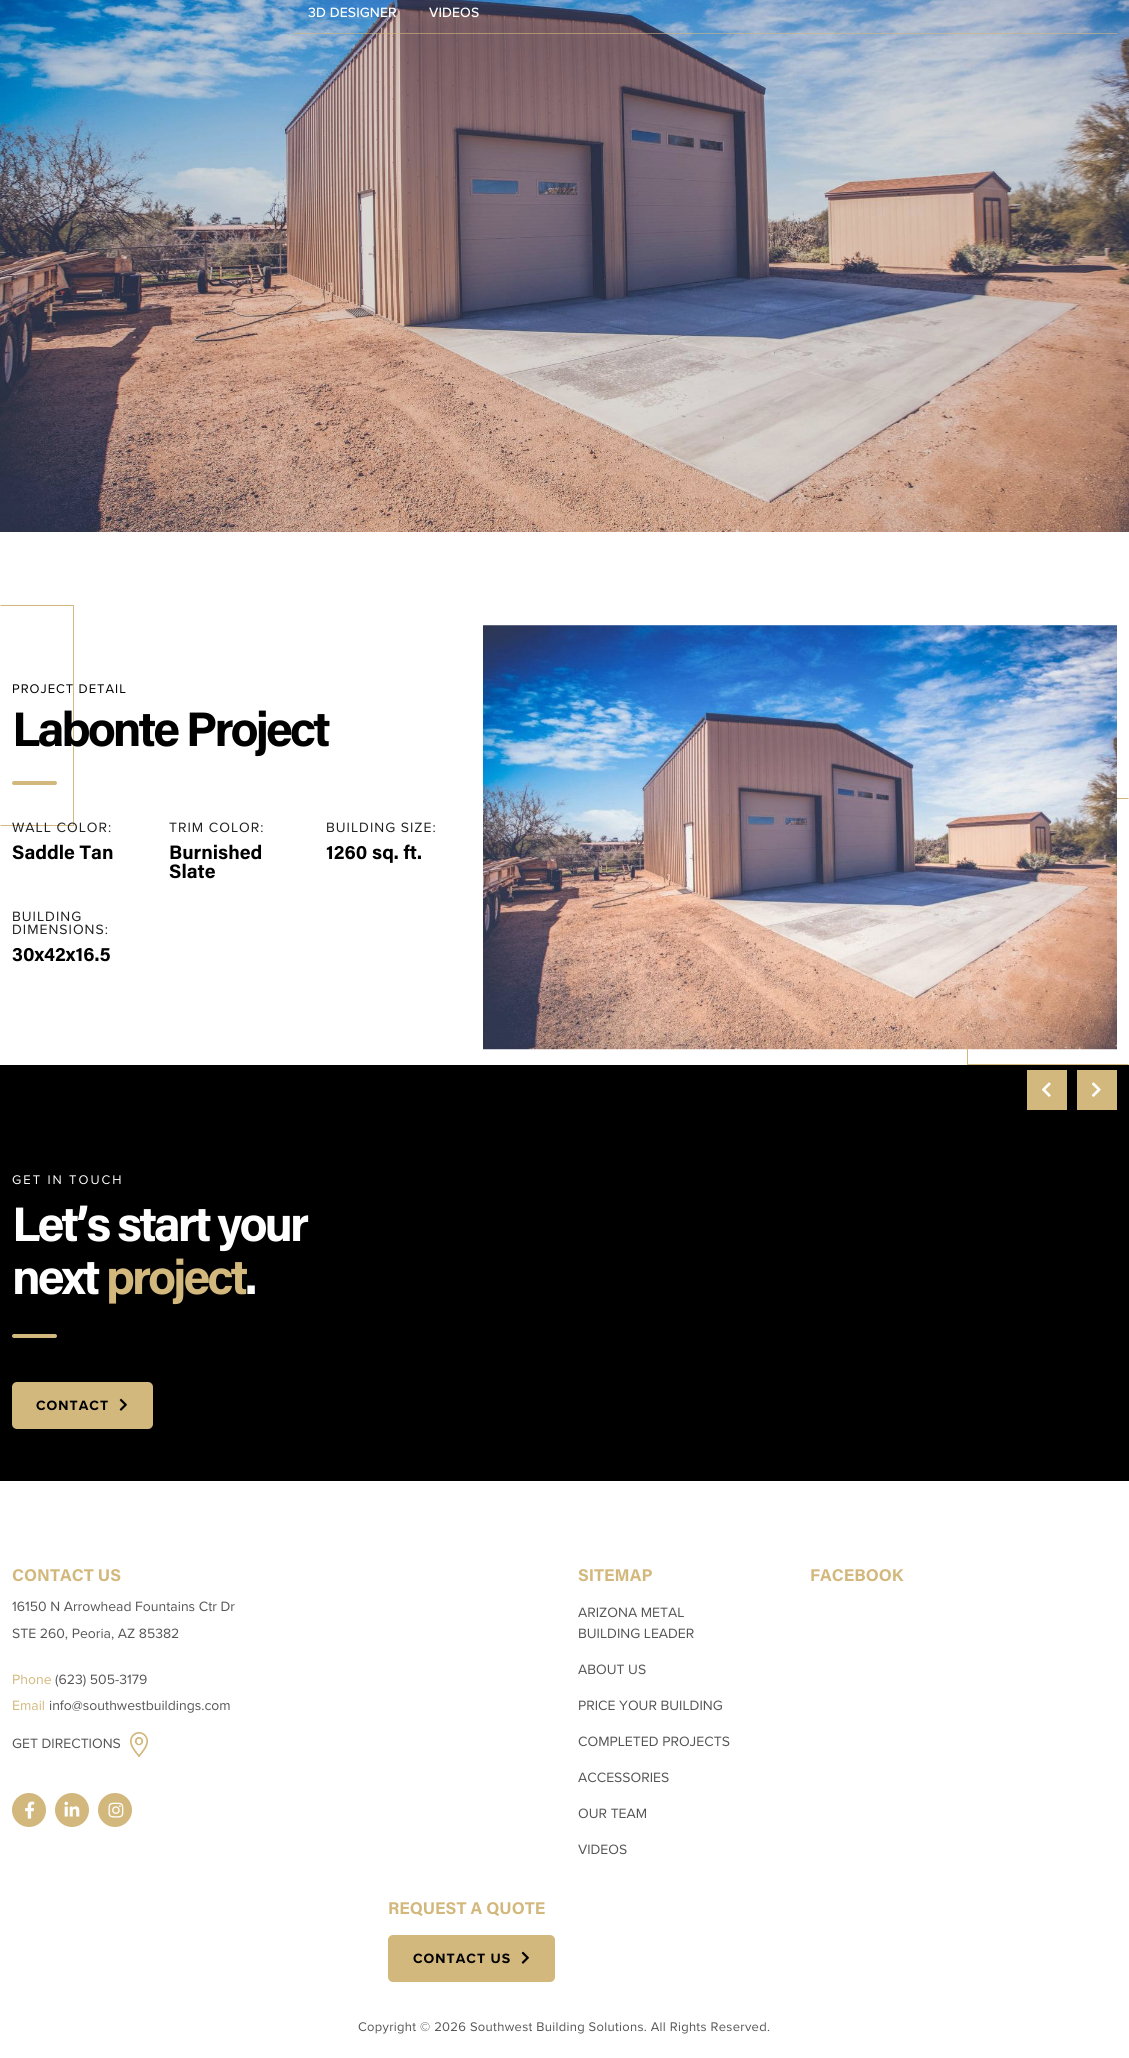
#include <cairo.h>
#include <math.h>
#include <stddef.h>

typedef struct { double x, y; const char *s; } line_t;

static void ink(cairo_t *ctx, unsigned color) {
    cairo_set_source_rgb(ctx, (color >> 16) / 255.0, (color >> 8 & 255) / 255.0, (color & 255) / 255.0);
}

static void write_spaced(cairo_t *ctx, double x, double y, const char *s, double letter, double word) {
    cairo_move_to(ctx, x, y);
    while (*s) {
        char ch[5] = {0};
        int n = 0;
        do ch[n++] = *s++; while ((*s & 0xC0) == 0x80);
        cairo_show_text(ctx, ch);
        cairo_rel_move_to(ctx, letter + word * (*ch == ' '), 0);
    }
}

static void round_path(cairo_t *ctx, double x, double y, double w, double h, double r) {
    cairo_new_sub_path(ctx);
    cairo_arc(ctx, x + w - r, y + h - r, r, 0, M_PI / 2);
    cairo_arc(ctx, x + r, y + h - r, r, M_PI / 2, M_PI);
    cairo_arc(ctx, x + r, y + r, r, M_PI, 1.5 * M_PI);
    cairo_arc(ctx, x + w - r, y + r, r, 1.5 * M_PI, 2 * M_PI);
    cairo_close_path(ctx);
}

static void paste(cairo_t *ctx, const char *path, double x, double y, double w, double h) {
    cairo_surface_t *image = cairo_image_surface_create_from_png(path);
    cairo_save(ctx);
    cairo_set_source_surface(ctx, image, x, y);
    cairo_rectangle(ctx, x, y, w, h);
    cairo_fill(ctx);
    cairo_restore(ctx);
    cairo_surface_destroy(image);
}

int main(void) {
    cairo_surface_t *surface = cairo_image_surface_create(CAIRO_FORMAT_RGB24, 1129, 2058);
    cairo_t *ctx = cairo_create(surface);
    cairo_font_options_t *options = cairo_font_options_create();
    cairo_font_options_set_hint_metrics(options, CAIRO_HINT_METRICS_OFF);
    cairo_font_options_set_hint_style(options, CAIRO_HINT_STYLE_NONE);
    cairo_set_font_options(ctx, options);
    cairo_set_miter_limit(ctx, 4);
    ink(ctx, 0xFFFFFF);
    cairo_paint(ctx);
    paste(ctx, "media/1.png", 0, 0, 1129, 532);
    cairo_set_source_rgba(ctx, 0.824, 0.722, 0.49, 0.6);
    cairo_rectangle(ctx, 294, 33, 823, 1);
    cairo_fill(ctx);
    cairo_select_font_face(ctx, "Proxima Nova Medium", CAIRO_FONT_SLANT_NORMAL, CAIRO_FONT_WEIGHT_NORMAL);
    cairo_set_font_size(ctx, 14);
    ink(ctx, 0xFFFFFF);
    write_spaced(ctx, 308, 17, "3D DESIGNER", 0.1, 0);
    write_spaced(ctx, 429, 17, "VIDEOS", 0.1, 0);
    ink(ctx, 0xD2B87D);
    cairo_new_path(ctx);
    cairo_move_to(ctx, 0, 605);
    cairo_line_to(ctx, 74, 605);
    cairo_line_to(ctx, 73, 606);
    cairo_line_to(ctx, 1, 606);
    cairo_close_path(ctx);
    cairo_fill(ctx);
    cairo_rectangle(ctx, 73, 605, 1, 221);
    cairo_fill(ctx);
    cairo_new_path(ctx);
    cairo_move_to(ctx, 74, 826);
    cairo_line_to(ctx, 0, 826);
    cairo_line_to(ctx, 1, 825);
    cairo_line_to(ctx, 73, 825);
    cairo_close_path(ctx);
    cairo_fill(ctx);
    cairo_select_font_face(ctx, "Proxima Nova", CAIRO_FONT_SLANT_NORMAL, CAIRO_FONT_WEIGHT_NORMAL);
    cairo_set_font_size(ctx, 13);
    ink(ctx, 0x000000);
    write_spaced(ctx, 12, 693, "PROJECT DETAIL", 1, 0);
    cairo_select_font_face(ctx, "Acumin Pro", CAIRO_FONT_SLANT_NORMAL, CAIRO_FONT_WEIGHT_BOLD);
    cairo_set_font_size(ctx, 48.5);
    write_spaced(ctx, 12, 746, "Labonte Project", -3, 0);
    ink(ctx, 0xD2B87D);
    round_path(ctx, 12, 781, 45, 4, 2);
    cairo_fill(ctx);
    cairo_select_font_face(ctx, "Proxima Nova", CAIRO_FONT_SLANT_NORMAL, CAIRO_FONT_WEIGHT_NORMAL);
    cairo_set_font_size(ctx, 14);
    ink(ctx, 0x1F1F1F);
    write_spaced(ctx, 12, 832, "WALL COLOR:", 1, 0);
    cairo_select_font_face(ctx, "Acumin Pro", CAIRO_FONT_SLANT_NORMAL, CAIRO_FONT_WEIGHT_BOLD);
    cairo_set_font_size(ctx, 19.5);
    ink(ctx, 0x000000);
    cairo_move_to(ctx, 12, 859);
    cairo_show_text(ctx, "Saddle Tan");
    cairo_select_font_face(ctx, "Proxima Nova", CAIRO_FONT_SLANT_NORMAL, CAIRO_FONT_WEIGHT_NORMAL);
    cairo_set_font_size(ctx, 14);
    ink(ctx, 0x1F1F1F);
    write_spaced(ctx, 169, 832, "TRIM COLOR:", 1, 0);
    cairo_select_font_face(ctx, "Acumin Pro", CAIRO_FONT_SLANT_NORMAL, CAIRO_FONT_WEIGHT_BOLD);
    cairo_set_font_size(ctx, 19.5);
    ink(ctx, 0x000000);
    cairo_move_to(ctx, 169, 859);
    cairo_show_text(ctx, "Burnished");
    cairo_move_to(ctx, 169, 878);
    cairo_show_text(ctx, "Slate");
    cairo_select_font_face(ctx, "Proxima Nova", CAIRO_FONT_SLANT_NORMAL, CAIRO_FONT_WEIGHT_NORMAL);
    cairo_set_font_size(ctx, 14);
    ink(ctx, 0x1F1F1F);
    write_spaced(ctx, 326, 832, "BUILDING SIZE:", 1, 0);
    cairo_select_font_face(ctx, "Acumin Pro", CAIRO_FONT_SLANT_NORMAL, CAIRO_FONT_WEIGHT_BOLD);
    cairo_set_font_size(ctx, 19.5);
    ink(ctx, 0x000000);
    cairo_move_to(ctx, 326, 859);
    cairo_show_text(ctx, "1260 sq. ft.");
    cairo_select_font_face(ctx, "Proxima Nova", CAIRO_FONT_SLANT_NORMAL, CAIRO_FONT_WEIGHT_NORMAL);
    cairo_set_font_size(ctx, 14);
    ink(ctx, 0x1F1F1F);
    write_spaced(ctx, 12, 921, "BUILDING", 1, 0);
    write_spaced(ctx, 12, 934, "DIMENSIONS:", 1, 0);
    cairo_select_font_face(ctx, "Acumin Pro", CAIRO_FONT_SLANT_NORMAL, CAIRO_FONT_WEIGHT_BOLD);
    cairo_set_font_size(ctx, 19.5);
    ink(ctx, 0x000000);
    cairo_move_to(ctx, 12, 961);
    cairo_show_text(ctx, "30x42x16.5");
    ink(ctx, 0xD2B87D);
    cairo_new_path(ctx);
    cairo_move_to(ctx, 967, 798);
    cairo_line_to(ctx, 1129, 798);
    cairo_line_to(ctx, 1128, 799);
    cairo_line_to(ctx, 968, 799);
    cairo_close_path(ctx);
    cairo_fill(ctx);
    cairo_new_path(ctx);
    cairo_move_to(ctx, 1129, 1065);
    cairo_line_to(ctx, 967, 1065);
    cairo_line_to(ctx, 968, 1064);
    cairo_line_to(ctx, 1128, 1064);
    cairo_close_path(ctx);
    cairo_fill(ctx);
    cairo_rectangle(ctx, 967, 1049, 1, 16);
    cairo_fill(ctx);
    paste(ctx, "media/2.png", 483, 625, 634, 425);
    ink(ctx, 0x000000);
    cairo_rectangle(ctx, 0, 1065, 1129, 416);
    cairo_fill(ctx);
    ink(ctx, 0xD2B87D);
    cairo_rectangle(ctx, 1027, 1070, 40, 40);
    cairo_fill(ctx);
    paste(ctx, "media/3.png", 1042, 1082, 9, 15);
    cairo_rectangle(ctx, 1077, 1070, 40, 40);
    cairo_fill(ctx);
    paste(ctx, "media/4.png", 1092, 1082, 9, 15);
    cairo_select_font_face(ctx, "Proxima Nova", CAIRO_FONT_SLANT_NORMAL, CAIRO_FONT_WEIGHT_NORMAL);
    cairo_set_font_size(ctx, 13);
    ink(ctx, 0xFFFFFF);
    write_spaced(ctx, 12, 1184, "GET IN TOUCH", 2, 0);
    cairo_select_font_face(ctx, "Acumin Pro", CAIRO_FONT_SLANT_NORMAL, CAIRO_FONT_WEIGHT_BOLD);
    cairo_set_font_size(ctx, 48.5);
    write_spaced(ctx, 12, 1241, "Let’s start your", -3, 0);
    write_spaced(ctx, 12, 1294, "next", -3, 0);
    ink(ctx, 0xD2B87D);
    write_spaced(ctx, 106, 1294, "project", -3, 0);
    ink(ctx, 0xFFFFFF);
    write_spaced(ctx, 245, 1294, ".", -3, 0);
    ink(ctx, 0xD2B87D);
    round_path(ctx, 12, 1334, 45, 4, 2);
    cairo_fill(ctx);
    round_path(ctx, 12, 1382, 141, 47, 5);
    cairo_fill(ctx);
    cairo_select_font_face(ctx, "Proxima Nova", CAIRO_FONT_SLANT_NORMAL, CAIRO_FONT_WEIGHT_BOLD);
    cairo_set_font_size(ctx, 14);
    ink(ctx, 0x000000);
    write_spaced(ctx, 36, 1410, "CONTACT", 1, 0);
    paste(ctx, "media/5.png", 119, 1398, 8, 13);
    cairo_select_font_face(ctx, "Acumin Pro", CAIRO_FONT_SLANT_NORMAL, CAIRO_FONT_WEIGHT_BOLD);
    cairo_set_font_size(ctx, 17);
    ink(ctx, 0xD2B87D);
    cairo_move_to(ctx, 12, 1581);
    cairo_show_text(ctx, "CONTACT US");
    cairo_select_font_face(ctx, "Proxima Nova", CAIRO_FONT_SLANT_NORMAL, CAIRO_FONT_WEIGHT_NORMAL);
    cairo_set_font_size(ctx, 14);
    ink(ctx, 0x555555);
    cairo_move_to(ctx, 12, 1611);
    cairo_show_text(ctx, "16150 N Arrowhead Fountains Ctr Dr");
    cairo_move_to(ctx, 12, 1638);
    cairo_show_text(ctx, "STE 260, Peoria, AZ 85382");
    ink(ctx, 0xD2B87D);
    cairo_move_to(ctx, 12, 1684);
    cairo_show_text(ctx, "Phone");
    ink(ctx, 0x555555);
    cairo_move_to(ctx, 55, 1684);
    cairo_show_text(ctx, "(623) 505-3179");
    ink(ctx, 0xD2B87D);
    cairo_move_to(ctx, 12, 1710);
    cairo_show_text(ctx, "Email");
    ink(ctx, 0x555555);
    cairo_move_to(ctx, 49, 1710);
    cairo_show_text(ctx, "info@southwestbuildings.com");
    cairo_move_to(ctx, 12, 1748);
    cairo_show_text(ctx, "GET DIRECTIONS");
    paste(ctx, "media/6.png", 130, 1732, 18, 25);
    ink(ctx, 0xD2B87D);
    cairo_arc(ctx, 29, 1810, 17, 0, 2 * M_PI);
    cairo_fill(ctx);
    paste(ctx, "media/7.png", 25, 1801, 10, 18);
    cairo_arc(ctx, 72, 1810, 17, 0, 2 * M_PI);
    cairo_fill(ctx);
    paste(ctx, "media/8.png", 64, 1801, 16, 16);
    cairo_arc(ctx, 115, 1810, 17, 0, 2 * M_PI);
    cairo_fill(ctx);
    paste(ctx, "media/9.png", 108, 1802, 16, 16);
    cairo_select_font_face(ctx, "Acumin Pro", CAIRO_FONT_SLANT_NORMAL, CAIRO_FONT_WEIGHT_BOLD);
    cairo_set_font_size(ctx, 17);
    cairo_move_to(ctx, 578, 1581);
    cairo_show_text(ctx, "SITEMAP");
    cairo_select_font_face(ctx, "Proxima Nova", CAIRO_FONT_SLANT_NORMAL, CAIRO_FONT_WEIGHT_NORMAL);
    cairo_set_font_size(ctx, 14);
    ink(ctx, 0x555555);
    {
        static const line_t items[] = {
            {578, 1617, "ARIZONA METAL"},
            {578, 1638, "BUILDING LEADER"},
            {578, 1674, "ABOUT US"},
            {578, 1710, "PRICE YOUR BUILDING"},
            {578, 1746, "COMPLETED PROJECTS"},
            {578, 1782, "ACCESSORIES"},
            {578, 1818, "OUR TEAM"},
            {578, 1854, "VIDEOS"},
        };
        for (size_t i = 0; i < sizeof items / sizeof *items; i++) {
            cairo_move_to(ctx, items[i].x, items[i].y);
            cairo_show_text(ctx, items[i].s);
        }
    }
    cairo_select_font_face(ctx, "Acumin Pro", CAIRO_FONT_SLANT_NORMAL, CAIRO_FONT_WEIGHT_BOLD);
    cairo_set_font_size(ctx, 17);
    ink(ctx, 0xD2B87D);
    cairo_move_to(ctx, 810, 1581);
    cairo_show_text(ctx, "FACEBOOK");
    cairo_move_to(ctx, 388, 1914);
    cairo_show_text(ctx, "REQUEST A QUOTE");
    round_path(ctx, 388, 1935, 167, 47, 5);
    cairo_fill(ctx);
    cairo_select_font_face(ctx, "Proxima Nova", CAIRO_FONT_SLANT_NORMAL, CAIRO_FONT_WEIGHT_BOLD);
    cairo_set_font_size(ctx, 14);
    ink(ctx, 0x000000);
    write_spaced(ctx, 413, 1963, "CONTACT US", 1, 0);
    paste(ctx, "media/5.png", 521, 1951, 8, 13);
    cairo_select_font_face(ctx, "Proxima Nova", CAIRO_FONT_SLANT_NORMAL, CAIRO_FONT_WEIGHT_NORMAL);
    cairo_set_font_size(ctx, 13);
    ink(ctx, 0x555555);
    write_spaced(ctx, 358, 2031, "Copyright © 2026 Southwest Building Solutions. All Rights Reserved.", 0.3, 0);
    cairo_surface_write_to_png(surface, "image.png");
    cairo_font_options_destroy(options);
    cairo_destroy(ctx);
    cairo_surface_destroy(surface);
    return 0;
}
